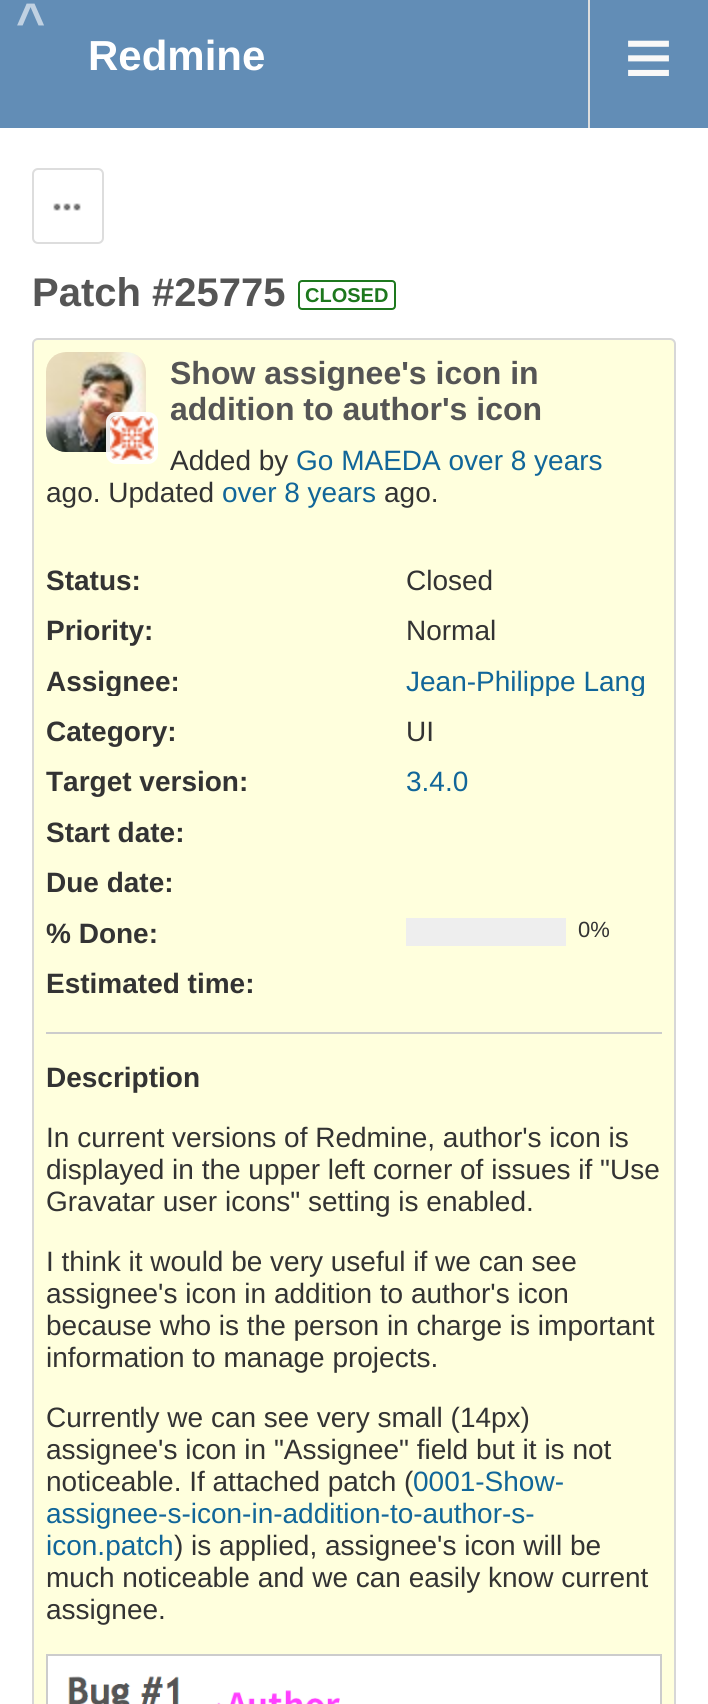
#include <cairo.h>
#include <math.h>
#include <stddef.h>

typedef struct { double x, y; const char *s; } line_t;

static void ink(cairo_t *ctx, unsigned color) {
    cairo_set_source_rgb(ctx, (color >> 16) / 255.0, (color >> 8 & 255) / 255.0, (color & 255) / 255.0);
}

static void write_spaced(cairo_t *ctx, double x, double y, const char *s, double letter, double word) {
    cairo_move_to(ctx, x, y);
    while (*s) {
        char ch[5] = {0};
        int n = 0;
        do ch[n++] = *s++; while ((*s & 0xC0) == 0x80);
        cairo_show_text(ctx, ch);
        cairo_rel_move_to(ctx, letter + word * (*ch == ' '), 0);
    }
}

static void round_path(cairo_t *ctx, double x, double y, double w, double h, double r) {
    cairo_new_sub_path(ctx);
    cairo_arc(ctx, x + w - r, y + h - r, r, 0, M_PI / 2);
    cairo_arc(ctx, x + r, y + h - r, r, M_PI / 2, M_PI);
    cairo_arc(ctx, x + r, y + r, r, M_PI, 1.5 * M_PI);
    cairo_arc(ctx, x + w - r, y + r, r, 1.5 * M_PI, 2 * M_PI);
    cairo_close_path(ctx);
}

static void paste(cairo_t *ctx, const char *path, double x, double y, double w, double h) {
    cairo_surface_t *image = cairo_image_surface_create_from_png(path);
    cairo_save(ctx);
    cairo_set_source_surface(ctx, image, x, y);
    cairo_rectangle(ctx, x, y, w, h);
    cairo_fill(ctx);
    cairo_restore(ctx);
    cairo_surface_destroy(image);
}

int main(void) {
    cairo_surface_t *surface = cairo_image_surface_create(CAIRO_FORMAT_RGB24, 708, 1704);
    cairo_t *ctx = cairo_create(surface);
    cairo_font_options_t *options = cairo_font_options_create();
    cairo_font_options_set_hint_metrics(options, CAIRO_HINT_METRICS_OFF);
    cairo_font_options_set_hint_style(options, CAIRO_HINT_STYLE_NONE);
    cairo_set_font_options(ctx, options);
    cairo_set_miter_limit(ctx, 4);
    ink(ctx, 0xFFFFFF);
    cairo_paint(ctx);
    ink(ctx, 0x628DB6);
    cairo_rectangle(ctx, 0, 0, 708, 128);
    cairo_fill(ctx);
    cairo_select_font_face(ctx, "Liberation Sans", CAIRO_FONT_SLANT_NORMAL, CAIRO_FONT_WEIGHT_BOLD);
    cairo_set_font_size(ctx, 50);
    ink(ctx, 0xC0D1E2);
    write_spaced(ctx, 16, 38, "^", 7, 0);
    cairo_set_font_size(ctx, 42);
    ink(ctx, 0xFFFFFF);
    cairo_move_to(ctx, 88, 70);
    cairo_show_text(ctx, "Redmine");
    ink(ctx, 0xDDDDDD);
    cairo_rectangle(ctx, 588, 0, 2, 128);
    cairo_fill(ctx);
    cairo_select_font_face(ctx, "Liberation Sans", CAIRO_FONT_SLANT_NORMAL, CAIRO_FONT_WEIGHT_NORMAL);
    cairo_set_font_size(ctx, 84);
    ink(ctx, 0xF8F8F8);
    cairo_move_to(ctx, 624, 86);
    cairo_show_text(ctx, "≡");
    round_path(ctx, 33, 169, 70, 74, 5);
    ink(ctx, 0xDDDDDD);
    cairo_stroke(ctx);
    paste(ctx, "media/1.png", 53, 203, 28, 8);
    cairo_select_font_face(ctx, "Liberation Sans", CAIRO_FONT_SLANT_NORMAL, CAIRO_FONT_WEIGHT_BOLD);
    cairo_set_font_size(ctx, 40);
    ink(ctx, 0x555555);
    cairo_move_to(ctx, 32, 306);
    cairo_show_text(ctx, "Patch #25775");
    round_path(ctx, 299, 281, 96, 28, 3);
    ink(ctx, 0x1D781D);
    cairo_stroke(ctx);
    cairo_set_font_size(ctx, 20);
    cairo_move_to(ctx, 305, 302);
    cairo_show_text(ctx, "CLOSED");
    ink(ctx, 0xFFFFDD);
    round_path(ctx, 33, 339, 642, 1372, 5);
    cairo_fill_preserve(ctx);
    ink(ctx, 0xD7D7D7);
    cairo_stroke(ctx);
    paste(ctx, "media/2.png", 46, 352, 100, 100);
    round_path(ctx, 108, 414, 48, 48, 8);
    cairo_set_source_rgba(ctx, 1, 1, 1, 0.9);
    cairo_set_line_width(ctx, 4);
    cairo_stroke(ctx);
    paste(ctx, "media/3.png", 110, 416, 44, 44);
    cairo_set_font_size(ctx, 32);
    ink(ctx, 0x555555);
    cairo_move_to(ctx, 170, 384);
    cairo_show_text(ctx, "Show assignee's icon in");
    cairo_move_to(ctx, 170, 420);
    cairo_show_text(ctx, "addition to author's icon");
    cairo_select_font_face(ctx, "Liberation Sans", CAIRO_FONT_SLANT_NORMAL, CAIRO_FONT_WEIGHT_NORMAL);
    cairo_set_font_size(ctx, 28);
    ink(ctx, 0x333333);
    cairo_move_to(ctx, 170, 470);
    cairo_show_text(ctx, "Added by");
    ink(ctx, 0x116699);
    cairo_move_to(ctx, 296, 470);
    cairo_show_text(ctx, "Go MAEDA over 8 years");
    ink(ctx, 0x333333);
    cairo_move_to(ctx, 46, 502);
    cairo_show_text(ctx, "ago. Updated");
    ink(ctx, 0x116699);
    cairo_move_to(ctx, 222, 502);
    cairo_show_text(ctx, "over 8 years");
    ink(ctx, 0x333333);
    cairo_move_to(ctx, 384, 502);
    cairo_show_text(ctx, "ago.");
    cairo_select_font_face(ctx, "Liberation Sans", CAIRO_FONT_SLANT_NORMAL, CAIRO_FONT_WEIGHT_BOLD);
    cairo_move_to(ctx, 46, 590);
    cairo_show_text(ctx, "Status:");
    cairo_select_font_face(ctx, "Liberation Sans", CAIRO_FONT_SLANT_NORMAL, CAIRO_FONT_WEIGHT_NORMAL);
    cairo_move_to(ctx, 406, 590);
    cairo_show_text(ctx, "Closed");
    cairo_select_font_face(ctx, "Liberation Sans", CAIRO_FONT_SLANT_NORMAL, CAIRO_FONT_WEIGHT_BOLD);
    cairo_move_to(ctx, 46, 640);
    cairo_show_text(ctx, "Priority:");
    cairo_select_font_face(ctx, "Liberation Sans", CAIRO_FONT_SLANT_NORMAL, CAIRO_FONT_WEIGHT_NORMAL);
    cairo_move_to(ctx, 406, 640);
    cairo_show_text(ctx, "Normal");
    cairo_save(ctx);
    cairo_rectangle(ctx, 46, 664, 340, 32);
    cairo_clip(ctx);
    cairo_select_font_face(ctx, "Liberation Sans", CAIRO_FONT_SLANT_NORMAL, CAIRO_FONT_WEIGHT_BOLD);
    cairo_move_to(ctx, 46, 691);
    cairo_show_text(ctx, "Assignee:");
    cairo_restore(ctx);
    cairo_save(ctx);
    cairo_rectangle(ctx, 406, 664, 256, 32);
    cairo_clip(ctx);
    ink(ctx, 0x116699);
    cairo_move_to(ctx, 406, 691);
    cairo_show_text(ctx, "Jean-Philippe Lang");
    cairo_restore(ctx);
    cairo_select_font_face(ctx, "Liberation Sans", CAIRO_FONT_SLANT_NORMAL, CAIRO_FONT_WEIGHT_BOLD);
    cairo_move_to(ctx, 46, 741);
    cairo_show_text(ctx, "Category:");
    cairo_select_font_face(ctx, "Liberation Sans", CAIRO_FONT_SLANT_NORMAL, CAIRO_FONT_WEIGHT_NORMAL);
    cairo_move_to(ctx, 406, 741);
    cairo_show_text(ctx, "UI");
    cairo_select_font_face(ctx, "Liberation Sans", CAIRO_FONT_SLANT_NORMAL, CAIRO_FONT_WEIGHT_BOLD);
    cairo_move_to(ctx, 46, 791);
    cairo_show_text(ctx, "Target version:");
    cairo_select_font_face(ctx, "Liberation Sans", CAIRO_FONT_SLANT_NORMAL, CAIRO_FONT_WEIGHT_NORMAL);
    ink(ctx, 0x116699);
    cairo_move_to(ctx, 406, 791);
    cairo_show_text(ctx, "3.4.0");
    cairo_select_font_face(ctx, "Liberation Sans", CAIRO_FONT_SLANT_NORMAL, CAIRO_FONT_WEIGHT_BOLD);
    ink(ctx, 0x333333);
    {
        static const line_t items[] = {
            {46, 842, "Start date:"},
            {46, 892, "Due date:"},
            {46, 943, "% Done:"},
        };
        for (size_t i = 0; i < sizeof items / sizeof *items; i++) {
            cairo_move_to(ctx, items[i].x, items[i].y);
            cairo_show_text(ctx, items[i].s);
        }
    }
    ink(ctx, 0xEEEEEE);
    cairo_rectangle(ctx, 406, 918, 160, 28);
    cairo_fill(ctx);
    cairo_select_font_face(ctx, "Liberation Sans", CAIRO_FONT_SLANT_NORMAL, CAIRO_FONT_WEIGHT_NORMAL);
    cairo_set_font_size(ctx, 22);
    ink(ctx, 0x333333);
    cairo_move_to(ctx, 578, 937);
    cairo_show_text(ctx, "0%");
    cairo_select_font_face(ctx, "Liberation Sans", CAIRO_FONT_SLANT_NORMAL, CAIRO_FONT_WEIGHT_BOLD);
    cairo_set_font_size(ctx, 28);
    cairo_move_to(ctx, 46, 993);
    cairo_show_text(ctx, "Estimated time:");
    ink(ctx, 0xCCCCCC);
    cairo_rectangle(ctx, 46, 1032, 616, 2);
    cairo_fill(ctx);
    ink(ctx, 0x333333);
    cairo_move_to(ctx, 46, 1087);
    cairo_show_text(ctx, "Description");
    cairo_select_font_face(ctx, "Liberation Sans", CAIRO_FONT_SLANT_NORMAL, CAIRO_FONT_WEIGHT_NORMAL);
    {
        static const line_t items[] = {
            {46, 1147, "In current versions of Redmine, author's icon is"},
            {46, 1179, "displayed in the upper left corner of issues if \"Use"},
            {46, 1211, "Gravatar user icons\" setting is enabled."},
            {46, 1271, "I think it would be very useful if we can see"},
            {46, 1303, "assignee's icon in addition to author's icon"},
            {46, 1335, "because who is the person in charge is important"},
            {46, 1367, "information to manage projects."},
            {46, 1427, "Currently we can see very small (14px)"},
            {46, 1459, "assignee's icon in \"Assignee\" field but it is not"},
            {46, 1491, "noticeable. If attached patch ("},
        };
        for (size_t i = 0; i < sizeof items / sizeof *items; i++) {
            cairo_move_to(ctx, items[i].x, items[i].y);
            cairo_show_text(ctx, items[i].s);
        }
    }
    ink(ctx, 0x116699);
    {
        static const line_t items[] = {
            {413, 1491, "0001-Show-"},
            {46, 1523, "assignee-s-icon-in-addition-to-author-s-"},
            {46, 1555, "icon.patch"},
        };
        for (size_t i = 0; i < sizeof items / sizeof *items; i++) {
            cairo_move_to(ctx, items[i].x, items[i].y);
            cairo_show_text(ctx, items[i].s);
        }
    }
    ink(ctx, 0x333333);
    {
        static const line_t items[] = {
            {174, 1555, ") is applied, assignee's icon will be"},
            {46, 1587, "much noticeable and we can easily know current"},
            {46, 1619, "assignee."},
        };
        for (size_t i = 0; i < sizeof items / sizeof *items; i++) {
            cairo_move_to(ctx, items[i].x, items[i].y);
            cairo_show_text(ctx, items[i].s);
        }
    }
    cairo_rectangle(ctx, 47, 1655, 614, 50);
    ink(ctx, 0xCCCCCC);
    cairo_set_line_width(ctx, 2);
    cairo_stroke(ctx);
    paste(ctx, "media/4.png", 48, 1656, 612, 48);
    cairo_surface_write_to_png(surface, "image.png");
    cairo_font_options_destroy(options);
    cairo_destroy(ctx);
    cairo_surface_destroy(surface);
    return 0;
}
